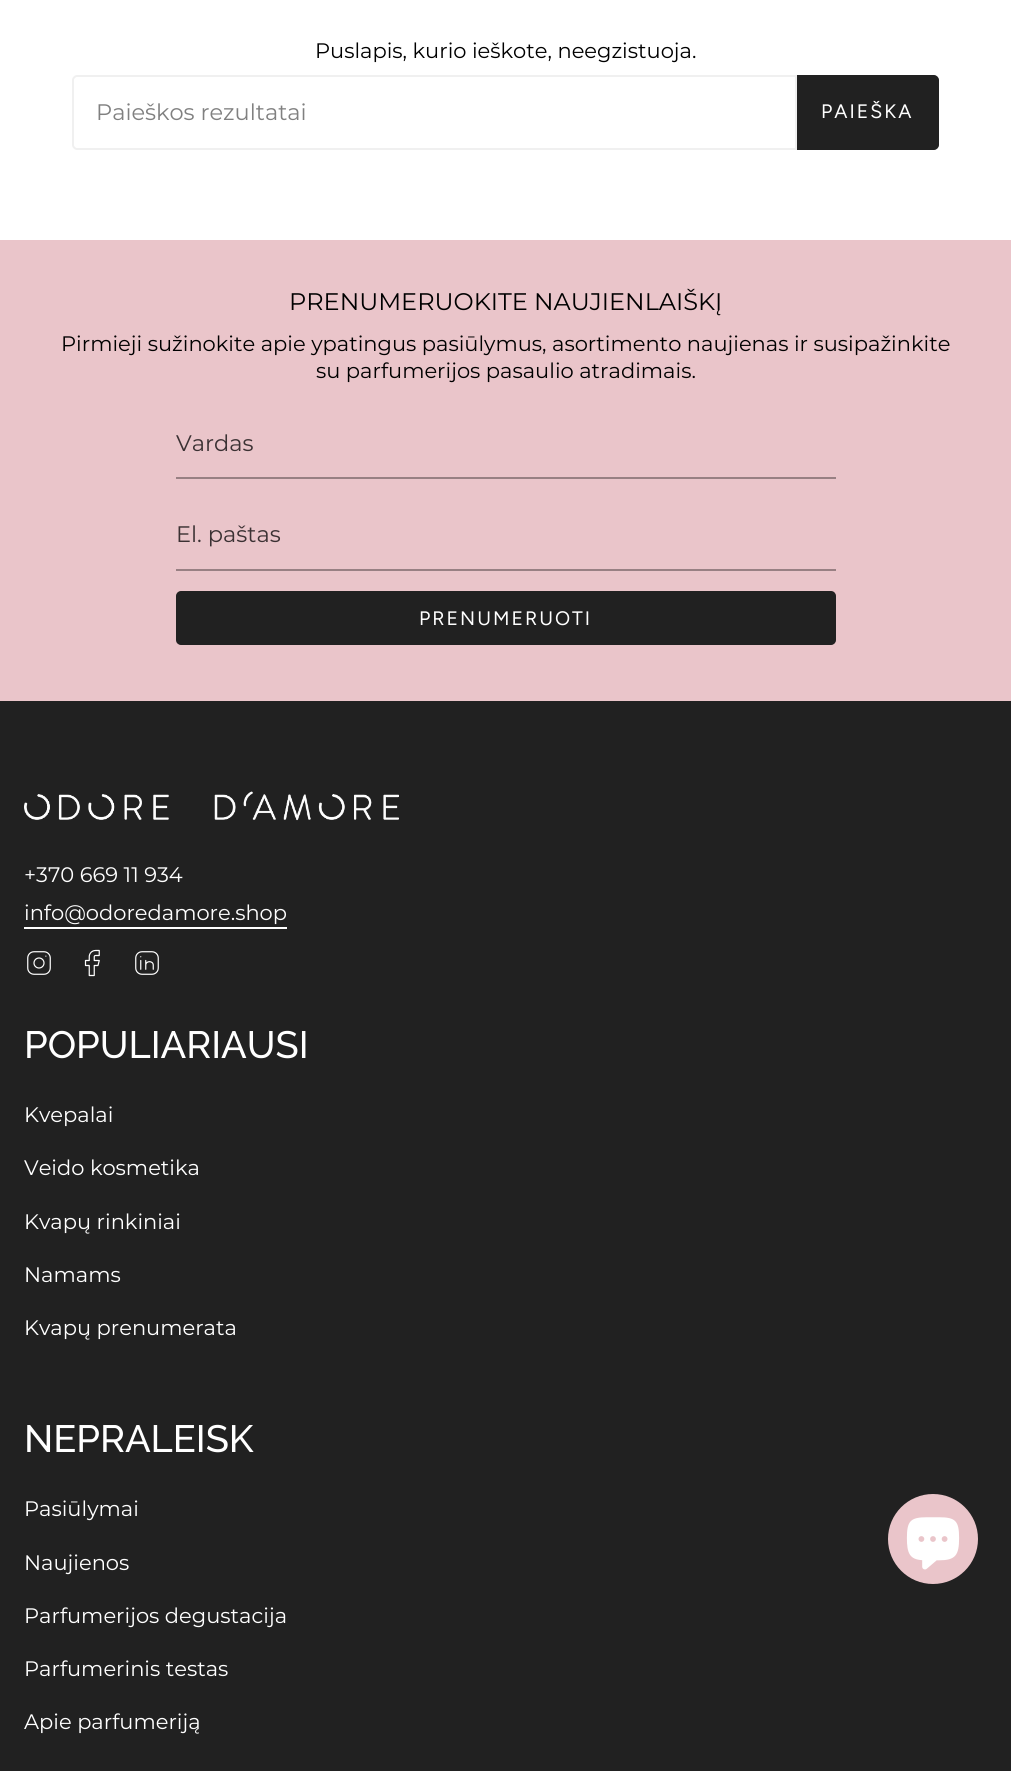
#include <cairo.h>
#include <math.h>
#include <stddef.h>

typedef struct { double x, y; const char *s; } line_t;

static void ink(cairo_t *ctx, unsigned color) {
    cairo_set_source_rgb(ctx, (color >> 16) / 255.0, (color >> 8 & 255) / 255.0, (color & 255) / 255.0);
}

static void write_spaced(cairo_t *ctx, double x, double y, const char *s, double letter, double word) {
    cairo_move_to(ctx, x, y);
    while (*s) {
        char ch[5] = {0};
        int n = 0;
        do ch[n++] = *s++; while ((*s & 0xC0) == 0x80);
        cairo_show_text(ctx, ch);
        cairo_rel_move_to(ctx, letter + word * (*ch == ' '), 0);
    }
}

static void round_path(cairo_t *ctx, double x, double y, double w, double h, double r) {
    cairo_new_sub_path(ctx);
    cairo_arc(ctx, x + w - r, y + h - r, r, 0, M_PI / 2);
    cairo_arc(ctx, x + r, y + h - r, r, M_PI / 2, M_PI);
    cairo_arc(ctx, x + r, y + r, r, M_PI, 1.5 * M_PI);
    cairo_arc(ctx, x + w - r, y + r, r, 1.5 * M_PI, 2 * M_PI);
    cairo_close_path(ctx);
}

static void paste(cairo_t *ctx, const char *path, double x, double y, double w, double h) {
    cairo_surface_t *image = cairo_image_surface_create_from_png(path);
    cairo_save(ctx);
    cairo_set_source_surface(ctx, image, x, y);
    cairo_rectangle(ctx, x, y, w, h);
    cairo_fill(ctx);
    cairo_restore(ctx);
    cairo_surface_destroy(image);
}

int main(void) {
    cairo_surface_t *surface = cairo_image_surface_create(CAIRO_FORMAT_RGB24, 1011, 1771);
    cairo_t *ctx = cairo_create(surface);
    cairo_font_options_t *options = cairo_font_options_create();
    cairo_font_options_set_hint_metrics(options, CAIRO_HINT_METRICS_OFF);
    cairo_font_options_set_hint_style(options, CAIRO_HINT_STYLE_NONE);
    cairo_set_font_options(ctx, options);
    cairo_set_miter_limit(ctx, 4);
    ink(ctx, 0xFFFFFF);
    cairo_paint(ctx);
    cairo_select_font_face(ctx, "Montserrat", CAIRO_FONT_SLANT_NORMAL, CAIRO_FONT_WEIGHT_NORMAL);
    cairo_set_font_size(ctx, 21);
    ink(ctx, 0x000000);
    cairo_move_to(ctx, 315, 58);
    cairo_show_text(ctx, "Puslapis, kurio ieškote, neegzistuoja.");
    cairo_new_path(ctx);
    cairo_move_to(ctx, 77, 76);
    cairo_line_to(ctx, 796, 76);
    cairo_line_to(ctx, 796, 149);
    cairo_line_to(ctx, 77, 149);
    cairo_curve_to(ctx, 75, 149, 73, 147, 73, 145);
    cairo_line_to(ctx, 73, 80);
    cairo_curve_to(ctx, 73, 78, 75, 76, 77, 76);
    cairo_close_path(ctx);
    ink(ctx, 0xF0F0F0);
    cairo_stroke(ctx);
    cairo_set_font_size(ctx, 22.5);
    ink(ctx, 0x808080);
    cairo_move_to(ctx, 96, 120);
    cairo_show_text(ctx, "Paieškos rezultatai");
    ink(ctx, 0x212121);
    cairo_new_path(ctx);
    cairo_move_to(ctx, 798, 76);
    cairo_line_to(ctx, 934, 76);
    cairo_curve_to(ctx, 936, 76, 938, 78, 938, 80);
    cairo_line_to(ctx, 938, 145);
    cairo_curve_to(ctx, 938, 147, 936, 149, 934, 149);
    cairo_line_to(ctx, 798, 149);
    cairo_close_path(ctx);
    cairo_fill_preserve(ctx);
    cairo_stroke(ctx);
    cairo_select_font_face(ctx, "Figtree", CAIRO_FONT_SLANT_NORMAL, CAIRO_FONT_WEIGHT_NORMAL);
    cairo_set_font_size(ctx, 19.5);
    ink(ctx, 0xFFFFFF);
    write_spaced(ctx, 821, 118, "PAIEŠKA", 2, 0);
    ink(ctx, 0xEAC5CA);
    cairo_rectangle(ctx, 0, 240, 1011, 461);
    cairo_fill(ctx);
    cairo_select_font_face(ctx, "Montserrat", CAIRO_FONT_SLANT_NORMAL, CAIRO_FONT_WEIGHT_NORMAL);
    cairo_set_font_size(ctx, 24);
    ink(ctx, 0x000000);
    cairo_move_to(ctx, 289, 310);
    cairo_show_text(ctx, "PRENUMERUOKITE NAUJIENLAIŠKĮ");
    cairo_set_font_size(ctx, 21);
    cairo_move_to(ctx, 61, 351);
    cairo_show_text(ctx, "Pirmieji sužinokite apie ypatingus pasiūlymus, asortimento naujienas ir susipažinkite");
    cairo_move_to(ctx, 316, 378);
    cairo_show_text(ctx, "su parfumerijos pasaulio atradimais.");
    ink(ctx, 0x988083);
    cairo_rectangle(ctx, 176, 477, 660, 2);
    cairo_fill(ctx);
    cairo_set_font_size(ctx, 22.5);
    ink(ctx, 0x3B3133);
    cairo_move_to(ctx, 176, 451);
    cairo_show_text(ctx, "Vardas");
    ink(ctx, 0x988083);
    cairo_rectangle(ctx, 176, 569, 660, 2);
    cairo_fill(ctx);
    ink(ctx, 0x3B3133);
    cairo_move_to(ctx, 176, 542);
    cairo_show_text(ctx, "El. paštas");
    ink(ctx, 0x212121);
    round_path(ctx, 177, 592, 658, 52, 4);
    cairo_fill_preserve(ctx);
    cairo_stroke(ctx);
    cairo_select_font_face(ctx, "Figtree", CAIRO_FONT_SLANT_NORMAL, CAIRO_FONT_WEIGHT_NORMAL);
    cairo_set_font_size(ctx, 19.5);
    ink(ctx, 0xFFFFFF);
    write_spaced(ctx, 419, 625, "PRENUMERUOTI", 2, 0);
    ink(ctx, 0x212121);
    cairo_rectangle(ctx, 0, 701, 1011, 1070);
    cairo_fill(ctx);
    paste(ctx, "media/1.png", 24, 791, 375, 30);
    cairo_select_font_face(ctx, "Montserrat", CAIRO_FONT_SLANT_NORMAL, CAIRO_FONT_WEIGHT_NORMAL);
    cairo_set_font_size(ctx, 21);
    ink(ctx, 0xFFFFFF);
    cairo_move_to(ctx, 24, 882);
    cairo_show_text(ctx, "+370 669 11 934");
    cairo_move_to(ctx, 24, 920);
    cairo_show_text(ctx, "info@odoredamore.shop");
    cairo_rectangle(ctx, 24, 927, 263, 2);
    cairo_fill(ctx);
    paste(ctx, "media/2.png", 27, 951, 24, 24);
    paste(ctx, "media/3.png", 84, 949, 16, 28);
    paste(ctx, "media/4.png", 135, 951, 24, 24);
    cairo_select_font_face(ctx, "Raleway Medium", CAIRO_FONT_SLANT_NORMAL, CAIRO_FONT_WEIGHT_NORMAL);
    cairo_set_font_size(ctx, 38);
    cairo_move_to(ctx, 24, 1058);
    cairo_show_text(ctx, "POPULIARIAUSI");
    cairo_select_font_face(ctx, "Montserrat", CAIRO_FONT_SLANT_NORMAL, CAIRO_FONT_WEIGHT_NORMAL);
    cairo_set_font_size(ctx, 21);
    {
        static const line_t items[] = {
            {24, 1122, "Kvepalai"},
            {24, 1175, "Veido kosmetika"},
            {24, 1229, "Kvapų rinkiniai"},
            {24, 1282, "Namams"},
            {24, 1335, "Kvapų prenumerata"},
        };
        for (size_t i = 0; i < sizeof items / sizeof *items; i++) {
            cairo_move_to(ctx, items[i].x, items[i].y);
            cairo_show_text(ctx, items[i].s);
        }
    }
    cairo_select_font_face(ctx, "Raleway Medium", CAIRO_FONT_SLANT_NORMAL, CAIRO_FONT_WEIGHT_NORMAL);
    cairo_set_font_size(ctx, 38);
    cairo_move_to(ctx, 24, 1452);
    cairo_show_text(ctx, "NEPRALEISK");
    cairo_select_font_face(ctx, "Montserrat", CAIRO_FONT_SLANT_NORMAL, CAIRO_FONT_WEIGHT_NORMAL);
    cairo_set_font_size(ctx, 21);
    {
        static const line_t items[] = {
            {24, 1516, "Pasiūlymai"},
            {24, 1570, "Naujienos"},
            {24, 1623, "Parfumerijos degustacija"},
            {24, 1676, "Parfumerinis testas"},
            {24, 1729, "Apie parfumeriją"},
        };
        for (size_t i = 0; i < sizeof items / sizeof *items; i++) {
            cairo_move_to(ctx, items[i].x, items[i].y);
            cairo_show_text(ctx, items[i].s);
        }
    }
    ink(ctx, 0xEAC5CA);
    cairo_new_path(ctx);
    cairo_arc(ctx, 933, 1539, 45, 0, 2 * M_PI);
    cairo_fill(ctx);
    paste(ctx, "media/5.png", 906, 1517, 54, 53);
    cairo_surface_write_to_png(surface, "image.png");
    cairo_font_options_destroy(options);
    cairo_destroy(ctx);
    cairo_surface_destroy(surface);
    return 0;
}
